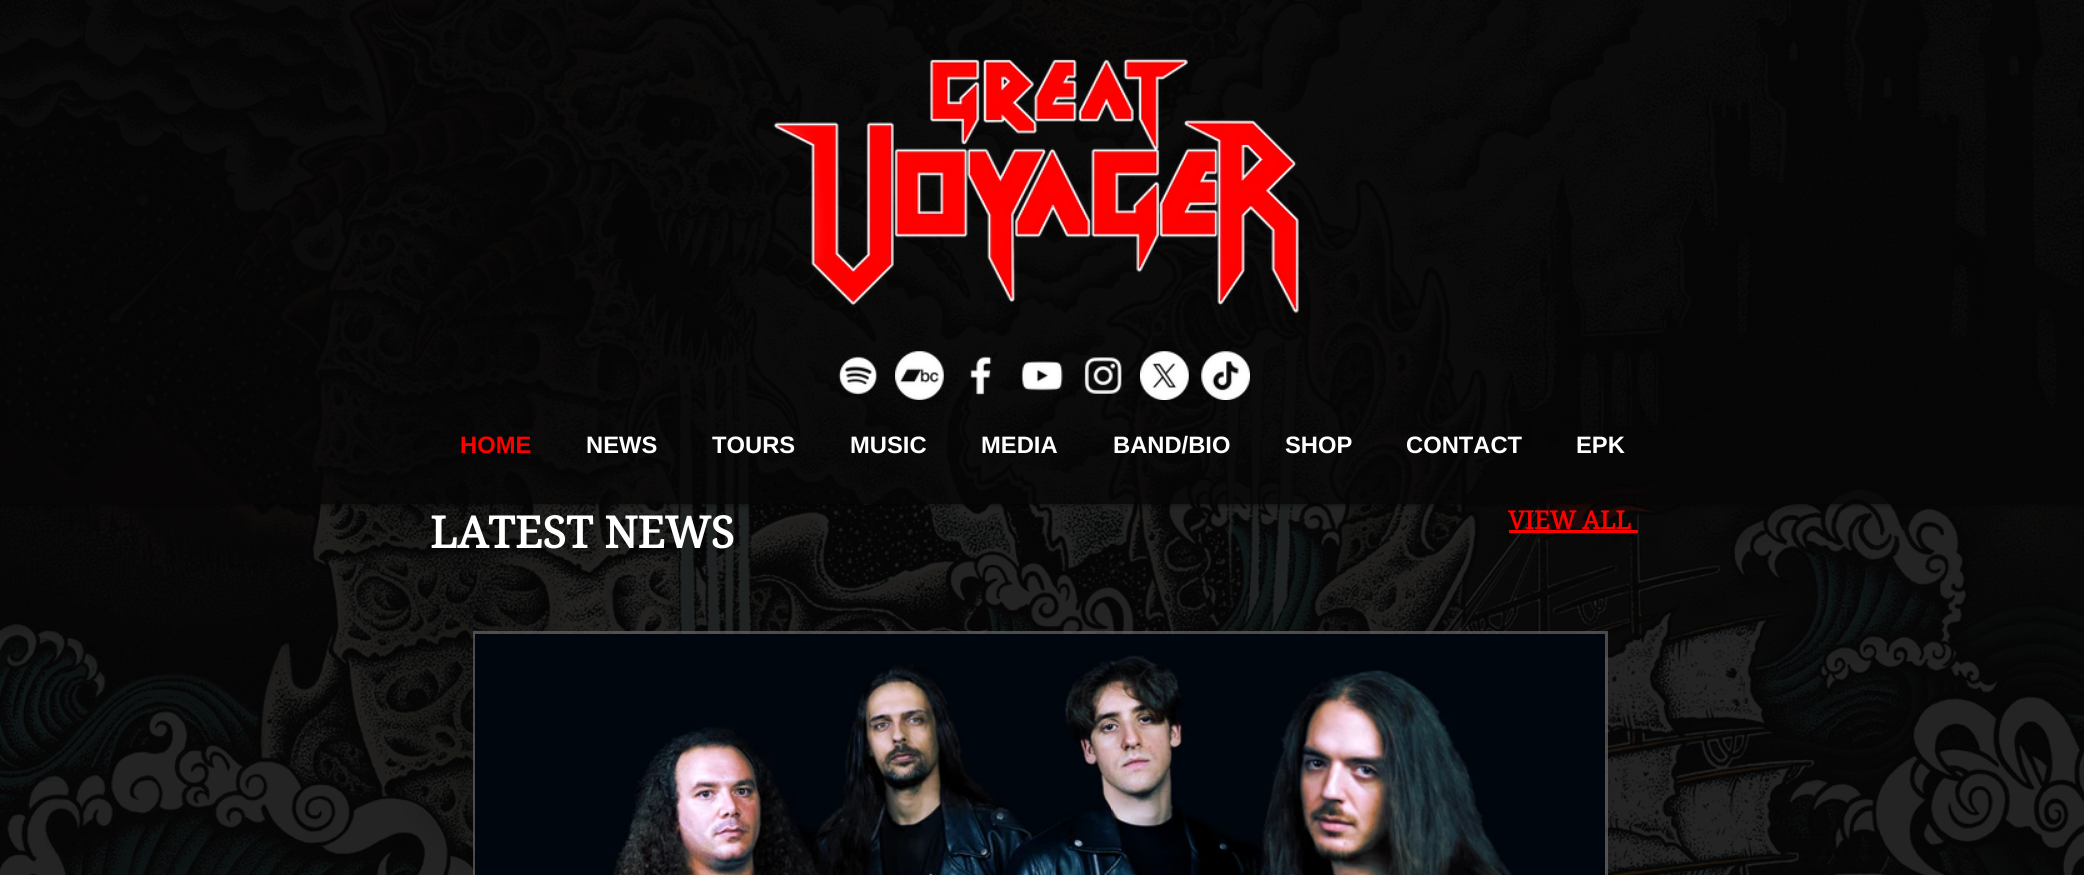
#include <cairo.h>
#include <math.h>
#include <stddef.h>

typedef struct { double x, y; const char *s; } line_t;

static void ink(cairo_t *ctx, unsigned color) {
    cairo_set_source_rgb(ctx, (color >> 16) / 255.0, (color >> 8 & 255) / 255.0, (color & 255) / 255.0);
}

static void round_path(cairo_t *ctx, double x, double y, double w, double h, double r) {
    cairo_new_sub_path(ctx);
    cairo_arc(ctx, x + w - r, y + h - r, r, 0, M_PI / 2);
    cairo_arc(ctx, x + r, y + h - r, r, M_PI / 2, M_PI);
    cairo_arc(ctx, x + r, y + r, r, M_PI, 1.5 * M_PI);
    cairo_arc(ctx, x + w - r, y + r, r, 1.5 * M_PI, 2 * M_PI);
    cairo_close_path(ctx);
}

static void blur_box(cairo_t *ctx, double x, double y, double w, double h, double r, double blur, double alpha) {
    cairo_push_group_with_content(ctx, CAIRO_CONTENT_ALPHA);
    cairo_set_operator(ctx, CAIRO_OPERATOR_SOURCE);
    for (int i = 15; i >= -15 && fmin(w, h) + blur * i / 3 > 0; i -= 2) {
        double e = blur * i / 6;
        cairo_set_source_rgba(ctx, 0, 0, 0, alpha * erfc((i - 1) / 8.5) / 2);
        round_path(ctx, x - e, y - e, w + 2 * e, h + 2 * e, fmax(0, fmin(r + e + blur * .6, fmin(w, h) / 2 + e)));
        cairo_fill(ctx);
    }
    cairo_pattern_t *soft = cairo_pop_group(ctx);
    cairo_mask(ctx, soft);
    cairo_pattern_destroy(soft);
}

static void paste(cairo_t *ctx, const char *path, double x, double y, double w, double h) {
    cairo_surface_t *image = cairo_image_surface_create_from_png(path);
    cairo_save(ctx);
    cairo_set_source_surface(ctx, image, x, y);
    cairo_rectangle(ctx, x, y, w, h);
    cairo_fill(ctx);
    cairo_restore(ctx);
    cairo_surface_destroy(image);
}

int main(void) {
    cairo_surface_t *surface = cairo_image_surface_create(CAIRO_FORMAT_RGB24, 2084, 875);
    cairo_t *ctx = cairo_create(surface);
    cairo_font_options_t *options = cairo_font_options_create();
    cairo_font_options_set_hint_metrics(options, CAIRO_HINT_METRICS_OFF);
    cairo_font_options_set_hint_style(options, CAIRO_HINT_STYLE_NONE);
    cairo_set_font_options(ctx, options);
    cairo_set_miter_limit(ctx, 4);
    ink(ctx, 0x070606);
    cairo_paint(ctx);
    paste(ctx, "media/1.png", 0, 0, 2084, 875);
    cairo_save(ctx);
    cairo_set_fill_rule(ctx, CAIRO_FILL_RULE_EVEN_ODD);
    cairo_new_path(ctx);
    cairo_move_to(ctx, 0, 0);
    cairo_line_to(ctx, 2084, 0);
    cairo_line_to(ctx, 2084, 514);
    cairo_line_to(ctx, 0, 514);
    cairo_close_path(ctx);
    cairo_move_to(ctx, 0, 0);
    cairo_line_to(ctx, 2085, 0);
    cairo_line_to(ctx, 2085, 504);
    cairo_line_to(ctx, 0, 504);
    cairo_close_path(ctx);
    cairo_clip(ctx);
    ink(ctx, 0x000000);
    blur_box(ctx, 0, 0, 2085, 504, 0, 3, 0.7);
    cairo_restore(ctx);
    cairo_set_source_rgba(ctx, 0.027, 0.024, 0.024, 0.8);
    cairo_rectangle(ctx, 0, 0, 2084, 504);
    cairo_fill(ctx);
    paste(ctx, "media/2.png", 773, 58, 526, 256);
    paste(ctx, "media/3.png", 838, 356, 40, 39);
    paste(ctx, "media/4.png", 895, 351, 49, 49);
    paste(ctx, "media/5.png", 970, 356, 22, 39);
    paste(ctx, "media/6.png", 1021, 361, 42, 30);
    paste(ctx, "media/7.png", 1084, 357, 38, 37);
    paste(ctx, "media/8.png", 1140, 351, 49, 49);
    paste(ctx, "media/9.png", 1201, 351, 49, 49);
    cairo_select_font_face(ctx, "Liberation Sans", CAIRO_FONT_SLANT_NORMAL, CAIRO_FONT_WEIGHT_BOLD);
    cairo_set_font_size(ctx, 23.75);
    ink(ctx, 0xFF0000);
    cairo_move_to(ctx, 460, 453);
    cairo_show_text(ctx, "HOME");
    ink(ctx, 0xFFFFFF);
    {
        static const line_t items[] = {
            {586, 453, "NEWS"},
            {712, 453, "TOURS"},
            {850, 453, "MUSIC"},
            {981, 453, "MEDIA"},
            {1113, 453, "BAND/BIO"},
            {1285, 453, "SHOP"},
            {1406, 453, "CONTACT"},
            {1576, 453, "EPK"},
        };
        for (size_t i = 0; i < sizeof items / sizeof *items; i++) {
            cairo_move_to(ctx, items[i].x, items[i].y);
            cairo_show_text(ctx, items[i].s);
        }
    }
    cairo_select_font_face(ctx, "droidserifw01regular", CAIRO_FONT_SLANT_NORMAL, CAIRO_FONT_WEIGHT_BOLD);
    cairo_set_font_size(ctx, 43.75);
    cairo_move_to(ctx, 430, 548);
    cairo_show_text(ctx, "LATEST NEWS");
    cairo_set_font_size(ctx, 25);
    ink(ctx, 0xFF0000);
    cairo_move_to(ctx, 1508, 529);
    cairo_show_text(ctx, "VIEW ALL");
    cairo_rectangle(ctx, 1509, 530, 129, 3);
    cairo_fill(ctx);
    cairo_set_source_rgba(ctx, 0.416, 0.4, 0.4, 0.7);
    cairo_rectangle(ctx, 473, 631, 1135, 244);
    cairo_fill(ctx);
    paste(ctx, "media/10.png", 475, 634, 1130, 241);
    cairo_surface_write_to_png(surface, "image.png");
    cairo_font_options_destroy(options);
    cairo_destroy(ctx);
    cairo_surface_destroy(surface);
    return 0;
}
